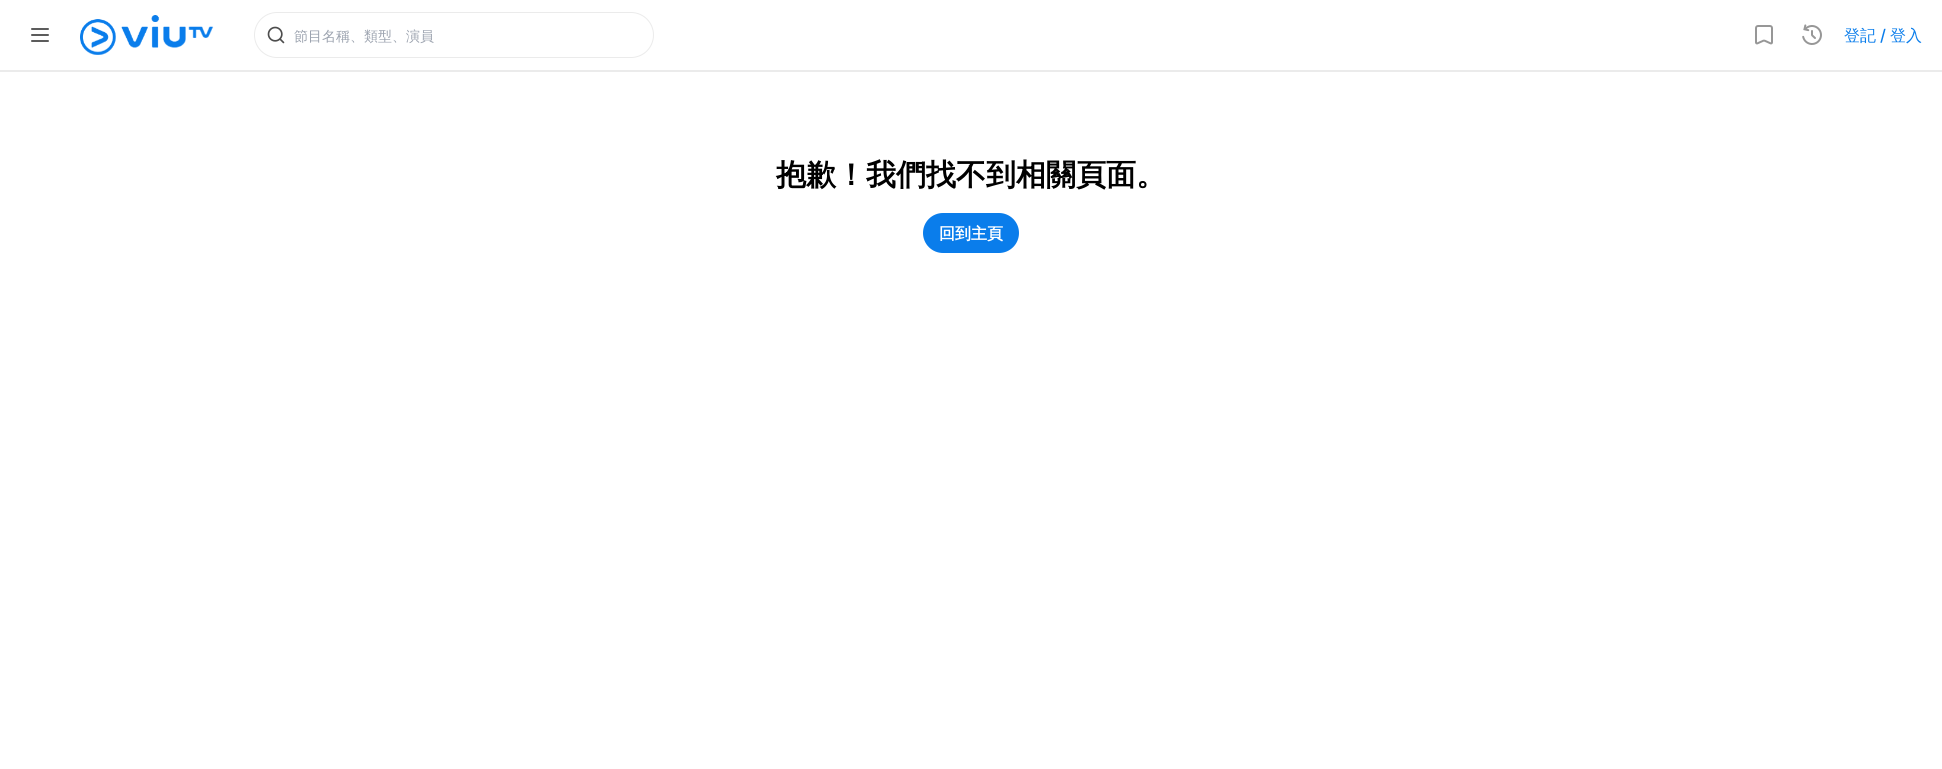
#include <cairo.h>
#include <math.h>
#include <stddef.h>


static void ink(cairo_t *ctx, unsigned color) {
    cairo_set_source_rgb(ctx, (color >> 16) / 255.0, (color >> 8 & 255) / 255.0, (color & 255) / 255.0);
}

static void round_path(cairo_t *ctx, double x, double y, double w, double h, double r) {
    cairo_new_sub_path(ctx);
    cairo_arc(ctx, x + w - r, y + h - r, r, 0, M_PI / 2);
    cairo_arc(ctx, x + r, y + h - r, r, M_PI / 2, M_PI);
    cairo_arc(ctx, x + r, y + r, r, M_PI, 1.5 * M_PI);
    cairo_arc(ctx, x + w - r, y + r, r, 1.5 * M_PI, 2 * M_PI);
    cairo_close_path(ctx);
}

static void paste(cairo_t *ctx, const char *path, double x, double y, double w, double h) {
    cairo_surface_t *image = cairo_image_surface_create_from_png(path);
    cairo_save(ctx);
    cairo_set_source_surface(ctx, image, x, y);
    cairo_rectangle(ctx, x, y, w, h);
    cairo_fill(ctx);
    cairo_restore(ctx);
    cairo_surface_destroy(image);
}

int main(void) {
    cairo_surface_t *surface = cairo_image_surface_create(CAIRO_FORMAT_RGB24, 1942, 769);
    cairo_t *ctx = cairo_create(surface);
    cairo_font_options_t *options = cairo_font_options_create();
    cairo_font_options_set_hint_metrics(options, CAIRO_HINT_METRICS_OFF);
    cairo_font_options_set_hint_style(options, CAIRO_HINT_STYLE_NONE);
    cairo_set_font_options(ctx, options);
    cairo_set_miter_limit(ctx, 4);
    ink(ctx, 0xFFFFFF);
    cairo_paint(ctx);
    ink(ctx, 0xEBEBEB);
    cairo_rectangle(ctx, 0, 70, 1942, 2);
    cairo_fill(ctx);
    paste(ctx, "media/1.png", 31, 28, 18, 14);
    paste(ctx, "media/2.png", 80, 15, 134, 40);
    round_path(ctx, 254, 12, 400, 46, 23);
    cairo_fill(ctx);
    ink(ctx, 0xFFFFFF);
    round_path(ctx, 255, 13, 398, 44, 22);
    cairo_fill(ctx);
    paste(ctx, "media/3.png", 267, 26, 18, 18);
    cairo_select_font_face(ctx, "WenQuanYi Zen Hei Medium", CAIRO_FONT_SLANT_NORMAL, CAIRO_FONT_WEIGHT_NORMAL);
    cairo_set_font_size(ctx, 14);
    ink(ctx, 0x9CA3AF);
    cairo_move_to(ctx, 294, 41);
    cairo_show_text(ctx, "節目名稱、類型、演員");
    paste(ctx, "media/4.png", 1755, 25, 18, 20);
    paste(ctx, "media/5.png", 1802, 24, 20, 21);
    cairo_set_font_size(ctx, 16);
    ink(ctx, 0x0A7DEB);
    cairo_move_to(ctx, 1844, 41);
    cairo_show_text(ctx, "登記");
    cairo_select_font_face(ctx, "Inter Medium", CAIRO_FONT_SLANT_NORMAL, CAIRO_FONT_WEIGHT_NORMAL);
    cairo_move_to(ctx, 1880, 41);
    cairo_show_text(ctx, "/");
    cairo_select_font_face(ctx, "WenQuanYi Zen Hei Medium", CAIRO_FONT_SLANT_NORMAL, CAIRO_FONT_WEIGHT_NORMAL);
    cairo_move_to(ctx, 1890, 41);
    cairo_show_text(ctx, "登入");
    cairo_select_font_face(ctx, "WenQuanYi Zen Hei", CAIRO_FONT_SLANT_NORMAL, CAIRO_FONT_WEIGHT_BOLD);
    cairo_set_font_size(ctx, 30);
    ink(ctx, 0x000000);
    cairo_move_to(ctx, 776, 185);
    cairo_show_text(ctx, "抱歉！我們找不到相關頁面。");
    ink(ctx, 0x0A7DEB);
    round_path(ctx, 923, 213, 96, 40, 20);
    cairo_fill(ctx);
    cairo_set_font_size(ctx, 16);
    ink(ctx, 0xFFFFFF);
    cairo_move_to(ctx, 939, 239);
    cairo_show_text(ctx, "回到主頁");
    cairo_surface_write_to_png(surface, "image.png");
    cairo_font_options_destroy(options);
    cairo_destroy(ctx);
    cairo_surface_destroy(surface);
    return 0;
}
